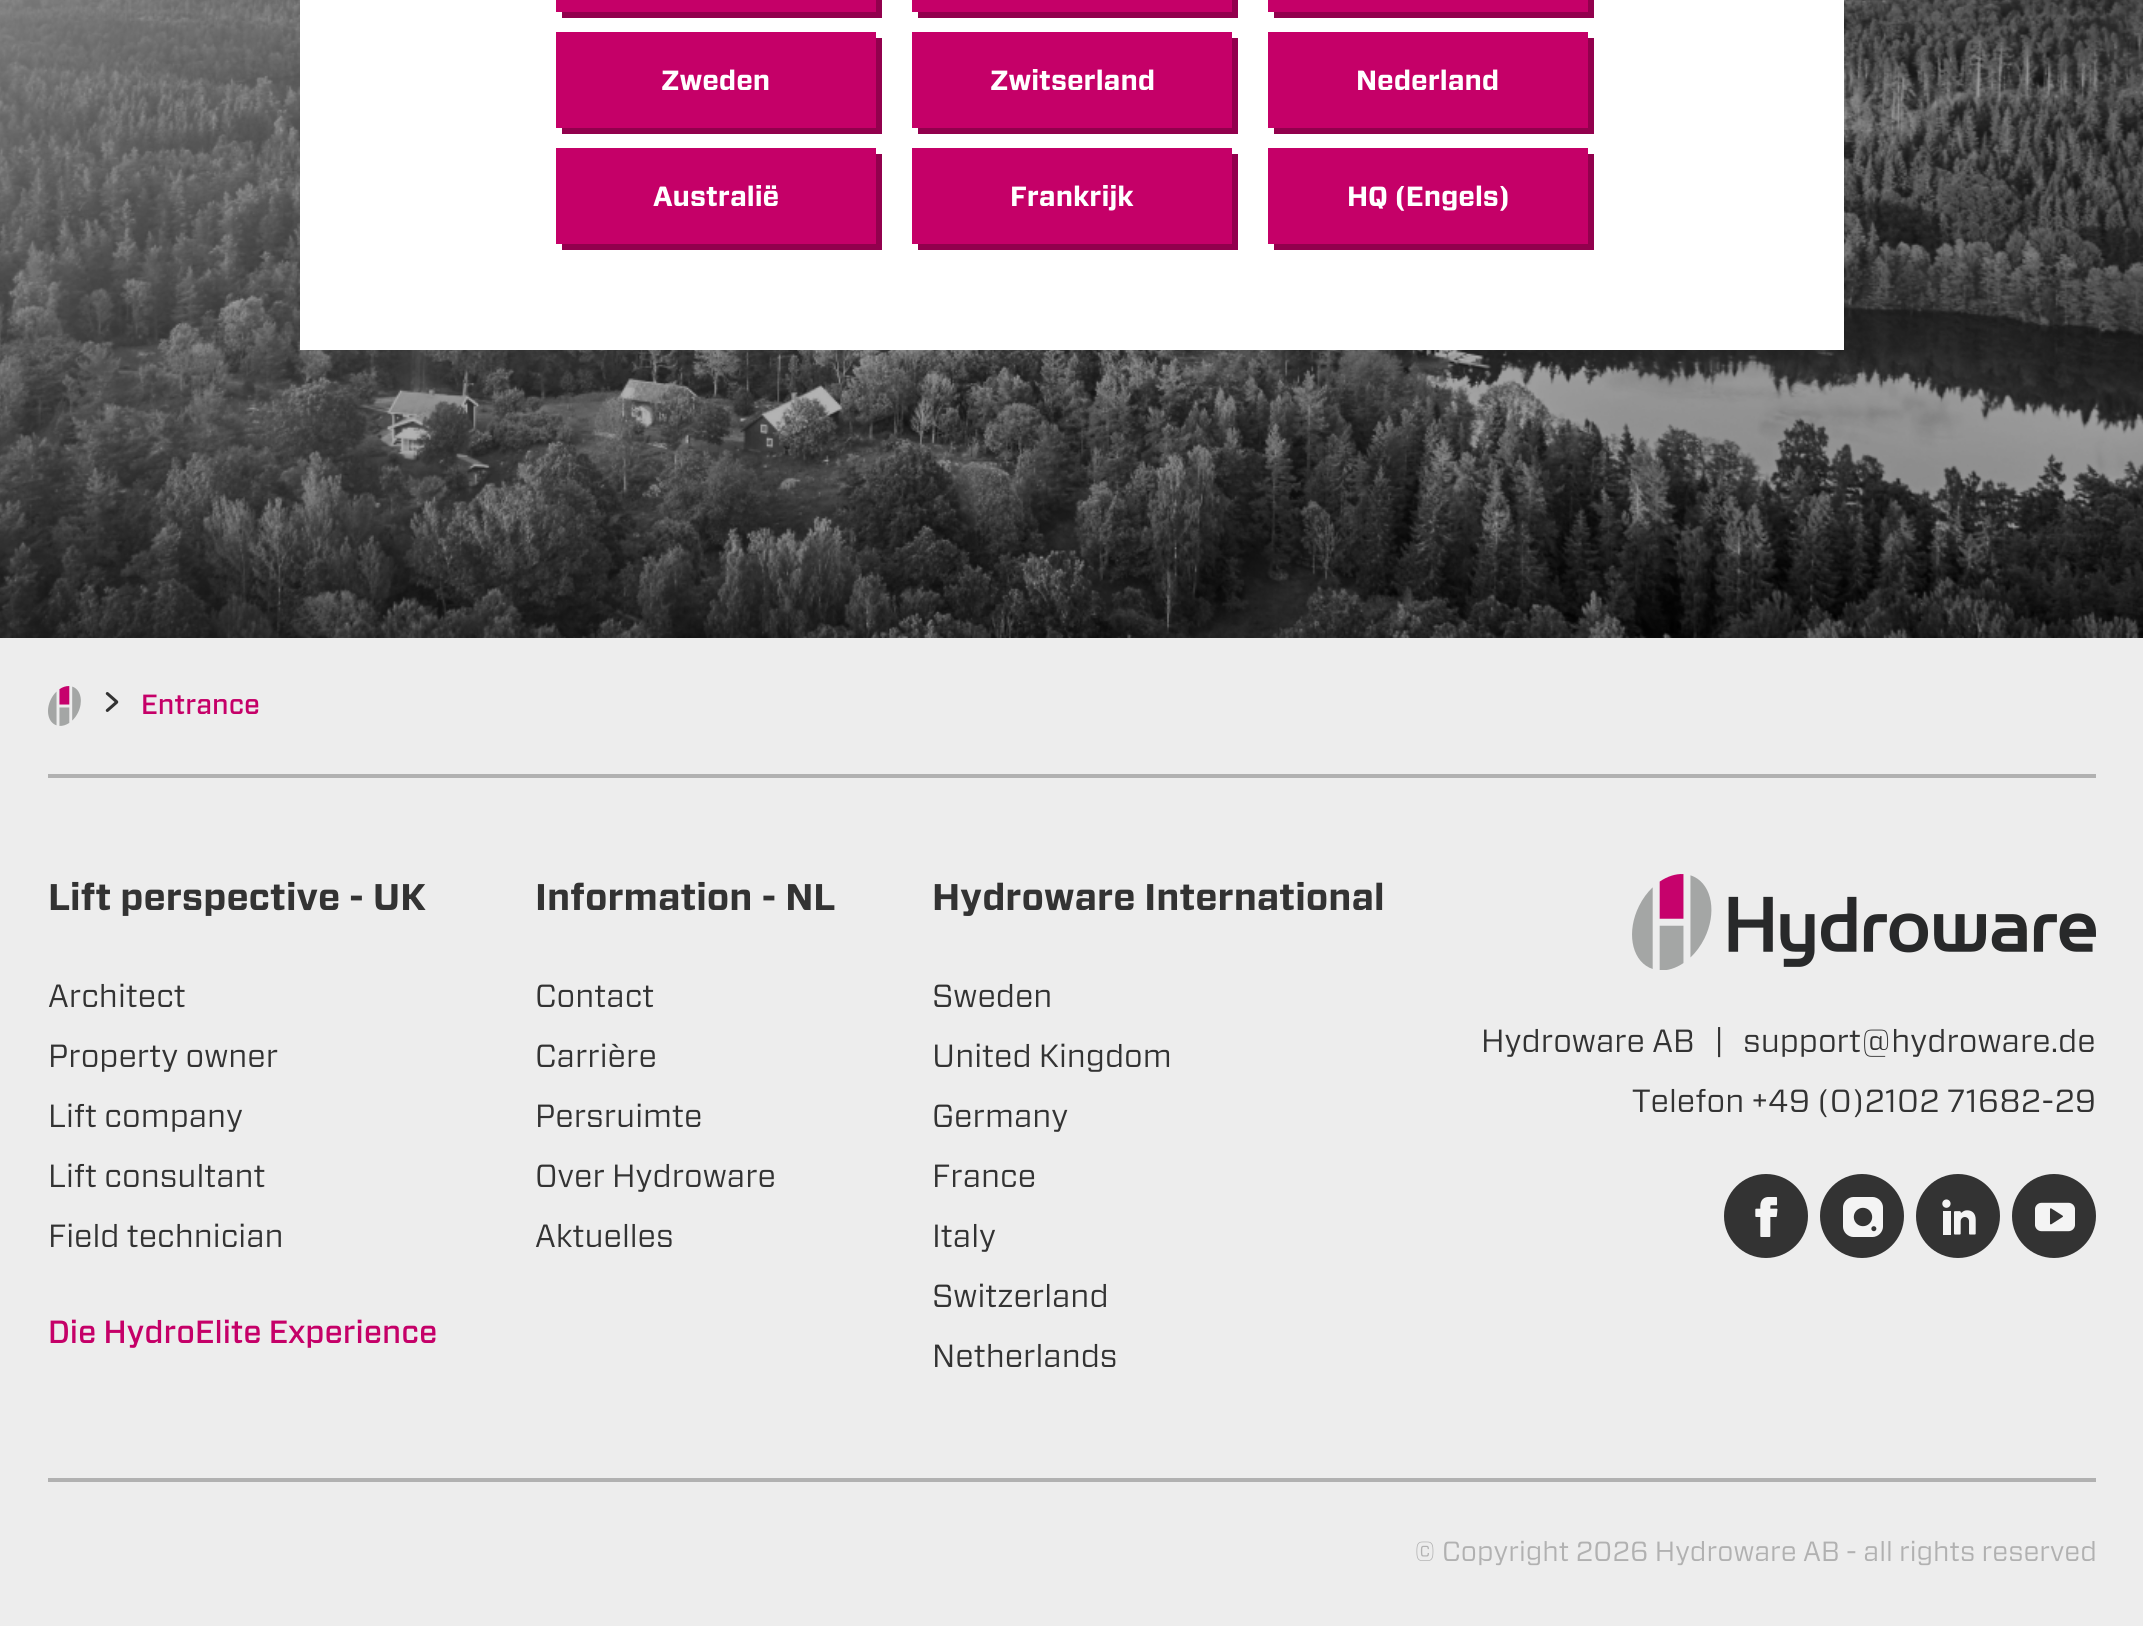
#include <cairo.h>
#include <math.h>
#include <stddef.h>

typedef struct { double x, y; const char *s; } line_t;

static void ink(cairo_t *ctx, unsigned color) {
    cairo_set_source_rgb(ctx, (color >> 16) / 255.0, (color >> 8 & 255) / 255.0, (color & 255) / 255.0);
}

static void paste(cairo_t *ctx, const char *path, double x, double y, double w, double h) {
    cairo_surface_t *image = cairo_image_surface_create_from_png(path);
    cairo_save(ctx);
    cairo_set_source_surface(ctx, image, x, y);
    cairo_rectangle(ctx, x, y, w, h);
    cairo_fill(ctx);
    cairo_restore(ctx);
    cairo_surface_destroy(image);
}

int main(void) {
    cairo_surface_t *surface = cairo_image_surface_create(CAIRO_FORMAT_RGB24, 2143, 1626);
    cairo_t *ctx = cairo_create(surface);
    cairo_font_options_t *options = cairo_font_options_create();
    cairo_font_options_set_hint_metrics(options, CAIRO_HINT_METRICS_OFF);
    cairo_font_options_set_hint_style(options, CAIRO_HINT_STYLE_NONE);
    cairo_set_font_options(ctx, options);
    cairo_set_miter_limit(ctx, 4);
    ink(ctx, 0xEDEDED);
    cairo_paint(ctx);
    paste(ctx, "media/1.png", 0, 0, 2143, 638);
    ink(ctx, 0xFFFFFF);
    cairo_rectangle(ctx, 300, 0, 1544, 350);
    cairo_fill(ctx);
    ink(ctx, 0x92004D);
    cairo_new_path(ctx);
    cairo_move_to(ctx, 562, 12);
    cairo_line_to(ctx, 562, 18);
    cairo_line_to(ctx, 882, 18);
    cairo_line_to(ctx, 882, -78);
    cairo_line_to(ctx, 876, -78);
    cairo_line_to(ctx, 876, 12);
    cairo_close_path(ctx);
    cairo_fill(ctx);
    ink(ctx, 0xC50068);
    cairo_rectangle(ctx, 556, 0, 320, 12);
    cairo_fill(ctx);
    ink(ctx, 0x92004D);
    cairo_new_path(ctx);
    cairo_move_to(ctx, 918, 12);
    cairo_line_to(ctx, 918, 18);
    cairo_line_to(ctx, 1238, 18);
    cairo_line_to(ctx, 1238, -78);
    cairo_line_to(ctx, 1232, -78);
    cairo_line_to(ctx, 1232, 12);
    cairo_close_path(ctx);
    cairo_fill(ctx);
    ink(ctx, 0xC50068);
    cairo_rectangle(ctx, 912, 0, 320, 12);
    cairo_fill(ctx);
    ink(ctx, 0x92004D);
    cairo_new_path(ctx);
    cairo_move_to(ctx, 1274, 12);
    cairo_line_to(ctx, 1274, 18);
    cairo_line_to(ctx, 1594, 18);
    cairo_line_to(ctx, 1594, -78);
    cairo_line_to(ctx, 1588, -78);
    cairo_line_to(ctx, 1588, 12);
    cairo_close_path(ctx);
    cairo_fill(ctx);
    ink(ctx, 0xC50068);
    cairo_rectangle(ctx, 1268, 0, 320, 12);
    cairo_fill(ctx);
    ink(ctx, 0x92004D);
    cairo_new_path(ctx);
    cairo_move_to(ctx, 562, 128);
    cairo_line_to(ctx, 562, 134);
    cairo_line_to(ctx, 882, 134);
    cairo_line_to(ctx, 882, 38);
    cairo_line_to(ctx, 876, 38);
    cairo_line_to(ctx, 876, 128);
    cairo_close_path(ctx);
    cairo_fill(ctx);
    ink(ctx, 0xC50068);
    cairo_rectangle(ctx, 556, 32, 320, 96);
    cairo_fill(ctx);
    cairo_select_font_face(ctx, "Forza", CAIRO_FONT_SLANT_NORMAL, CAIRO_FONT_WEIGHT_BOLD);
    cairo_set_font_size(ctx, 27.7);
    ink(ctx, 0xFFFFFF);
    cairo_move_to(ctx, 661, 90);
    cairo_show_text(ctx, "Zweden");
    ink(ctx, 0x92004D);
    cairo_new_path(ctx);
    cairo_move_to(ctx, 918, 128);
    cairo_line_to(ctx, 918, 134);
    cairo_line_to(ctx, 1238, 134);
    cairo_line_to(ctx, 1238, 38);
    cairo_line_to(ctx, 1232, 38);
    cairo_line_to(ctx, 1232, 128);
    cairo_close_path(ctx);
    cairo_fill(ctx);
    ink(ctx, 0xC50068);
    cairo_rectangle(ctx, 912, 32, 320, 96);
    cairo_fill(ctx);
    ink(ctx, 0xFFFFFF);
    cairo_move_to(ctx, 990, 90);
    cairo_show_text(ctx, "Zwitserland");
    ink(ctx, 0x92004D);
    cairo_new_path(ctx);
    cairo_move_to(ctx, 1274, 128);
    cairo_line_to(ctx, 1274, 134);
    cairo_line_to(ctx, 1594, 134);
    cairo_line_to(ctx, 1594, 38);
    cairo_line_to(ctx, 1588, 38);
    cairo_line_to(ctx, 1588, 128);
    cairo_close_path(ctx);
    cairo_fill(ctx);
    ink(ctx, 0xC50068);
    cairo_rectangle(ctx, 1268, 32, 320, 96);
    cairo_fill(ctx);
    ink(ctx, 0xFFFFFF);
    cairo_move_to(ctx, 1356, 90);
    cairo_show_text(ctx, "Nederland");
    ink(ctx, 0x92004D);
    cairo_new_path(ctx);
    cairo_move_to(ctx, 562, 244);
    cairo_line_to(ctx, 562, 250);
    cairo_line_to(ctx, 882, 250);
    cairo_line_to(ctx, 882, 154);
    cairo_line_to(ctx, 876, 154);
    cairo_line_to(ctx, 876, 244);
    cairo_close_path(ctx);
    cairo_fill(ctx);
    ink(ctx, 0xC50068);
    cairo_rectangle(ctx, 556, 148, 320, 96);
    cairo_fill(ctx);
    ink(ctx, 0xFFFFFF);
    cairo_move_to(ctx, 653, 206);
    cairo_show_text(ctx, "Australië");
    ink(ctx, 0x92004D);
    cairo_new_path(ctx);
    cairo_move_to(ctx, 918, 244);
    cairo_line_to(ctx, 918, 250);
    cairo_line_to(ctx, 1238, 250);
    cairo_line_to(ctx, 1238, 154);
    cairo_line_to(ctx, 1232, 154);
    cairo_line_to(ctx, 1232, 244);
    cairo_close_path(ctx);
    cairo_fill(ctx);
    ink(ctx, 0xC50068);
    cairo_rectangle(ctx, 912, 148, 320, 96);
    cairo_fill(ctx);
    ink(ctx, 0xFFFFFF);
    cairo_move_to(ctx, 1010, 206);
    cairo_show_text(ctx, "Frankrijk");
    ink(ctx, 0x92004D);
    cairo_new_path(ctx);
    cairo_move_to(ctx, 1274, 244);
    cairo_line_to(ctx, 1274, 250);
    cairo_line_to(ctx, 1594, 250);
    cairo_line_to(ctx, 1594, 154);
    cairo_line_to(ctx, 1588, 154);
    cairo_line_to(ctx, 1588, 244);
    cairo_close_path(ctx);
    cairo_fill(ctx);
    ink(ctx, 0xC50068);
    cairo_rectangle(ctx, 1268, 148, 320, 96);
    cairo_fill(ctx);
    ink(ctx, 0xFFFFFF);
    cairo_move_to(ctx, 1347, 206);
    cairo_show_text(ctx, "HQ (Engels)");
    paste(ctx, "media/2.png", 48, 686, 33, 40);
    paste(ctx, "media/3.png", 105, 692, 14, 20);
    cairo_select_font_face(ctx, "Forza Medium", CAIRO_FONT_SLANT_NORMAL, CAIRO_FONT_WEIGHT_NORMAL);
    ink(ctx, 0xC50068);
    cairo_move_to(ctx, 141, 714);
    cairo_show_text(ctx, "Entrance");
    ink(ctx, 0xB1B1B1);
    cairo_rectangle(ctx, 48, 774, 2048, 4);
    cairo_fill(ctx);
    cairo_rectangle(ctx, 48, 1478, 2048, 4);
    cairo_fill(ctx);
    cairo_select_font_face(ctx, "Forza", CAIRO_FONT_SLANT_NORMAL, CAIRO_FONT_WEIGHT_BOLD);
    cairo_set_font_size(ctx, 37);
    ink(ctx, 0x333333);
    cairo_move_to(ctx, 48, 910);
    cairo_show_text(ctx, "Lift perspective - UK");
    cairo_select_font_face(ctx, "Forza", CAIRO_FONT_SLANT_NORMAL, CAIRO_FONT_WEIGHT_NORMAL);
    cairo_set_font_size(ctx, 32);
    {
        static const line_t items[] = {
            {48, 1007, "Architect"},
            {48, 1067, "Property owner"},
            {48, 1127, "Lift company"},
            {48, 1187, "Lift consultant"},
            {48, 1247, "Field technician"},
        };
        for (size_t i = 0; i < sizeof items / sizeof *items; i++) {
            cairo_move_to(ctx, items[i].x, items[i].y);
            cairo_show_text(ctx, items[i].s);
        }
    }
    cairo_select_font_face(ctx, "Forza Medium", CAIRO_FONT_SLANT_NORMAL, CAIRO_FONT_WEIGHT_NORMAL);
    ink(ctx, 0xC50068);
    cairo_move_to(ctx, 48, 1343);
    cairo_show_text(ctx, "Die HydroElite Experience");
    cairo_select_font_face(ctx, "Forza", CAIRO_FONT_SLANT_NORMAL, CAIRO_FONT_WEIGHT_BOLD);
    cairo_set_font_size(ctx, 37);
    ink(ctx, 0x333333);
    cairo_move_to(ctx, 535, 910);
    cairo_show_text(ctx, "Information - NL");
    cairo_select_font_face(ctx, "Forza", CAIRO_FONT_SLANT_NORMAL, CAIRO_FONT_WEIGHT_NORMAL);
    cairo_set_font_size(ctx, 32);
    {
        static const line_t items[] = {
            {535, 1007, "Contact"},
            {535, 1067, "Carrière"},
            {535, 1127, "Persruimte"},
            {535, 1187, "Over Hydroware"},
            {535, 1247, "Aktuelles"},
        };
        for (size_t i = 0; i < sizeof items / sizeof *items; i++) {
            cairo_move_to(ctx, items[i].x, items[i].y);
            cairo_show_text(ctx, items[i].s);
        }
    }
    cairo_select_font_face(ctx, "Forza", CAIRO_FONT_SLANT_NORMAL, CAIRO_FONT_WEIGHT_BOLD);
    cairo_set_font_size(ctx, 37);
    cairo_move_to(ctx, 932, 910);
    cairo_show_text(ctx, "Hydroware International");
    cairo_select_font_face(ctx, "Forza", CAIRO_FONT_SLANT_NORMAL, CAIRO_FONT_WEIGHT_NORMAL);
    cairo_set_font_size(ctx, 32);
    {
        static const line_t items[] = {
            {932, 1007, "Sweden"},
            {932, 1067, "United Kingdom"},
            {932, 1127, "Germany"},
            {932, 1187, "France"},
            {932, 1247, "Italy"},
            {932, 1307, "Switzerland"},
            {932, 1367, "Netherlands"},
        };
        for (size_t i = 0; i < sizeof items / sizeof *items; i++) {
            cairo_move_to(ctx, items[i].x, items[i].y);
            cairo_show_text(ctx, items[i].s);
        }
    }
    paste(ctx, "media/4.png", 1632, 874, 464, 96);
    {
        static const line_t items[] = {
            {1481, 1052, "Hydroware AB"},
            {1714, 1052, "|"},
            {1743, 1052, "support@hydroware.de"},
            {1632, 1112, "Telefon +49 (0)2102 71682-29"},
        };
        for (size_t i = 0; i < sizeof items / sizeof *items; i++) {
            cairo_move_to(ctx, items[i].x, items[i].y);
            cairo_show_text(ctx, items[i].s);
        }
    }
    cairo_new_path(ctx);
    cairo_arc(ctx, 1766, 1216, 42, 0, 2 * M_PI);
    cairo_fill(ctx);
    paste(ctx, "media/5.png", 1755, 1197, 23, 40);
    cairo_arc(ctx, 1862, 1216, 42, 0, 2 * M_PI);
    cairo_fill(ctx);
    paste(ctx, "media/6.png", 1843, 1197, 40, 40);
    cairo_arc(ctx, 1958, 1216, 42, 0, 2 * M_PI);
    cairo_fill(ctx);
    paste(ctx, "media/7.png", 1942, 1199, 34, 36);
    cairo_arc(ctx, 2054, 1216, 42, 0, 2 * M_PI);
    cairo_fill(ctx);
    paste(ctx, "media/8.png", 2035, 1202, 40, 30);
    cairo_set_font_size(ctx, 27.7);
    ink(ctx, 0xB1B1B1);
    cairo_move_to(ctx, 1414, 1561);
    cairo_show_text(ctx, "© Copyright 2026 Hydroware AB - all rights reserved");
    cairo_surface_write_to_png(surface, "image.png");
    cairo_font_options_destroy(options);
    cairo_destroy(ctx);
    cairo_surface_destroy(surface);
    return 0;
}
